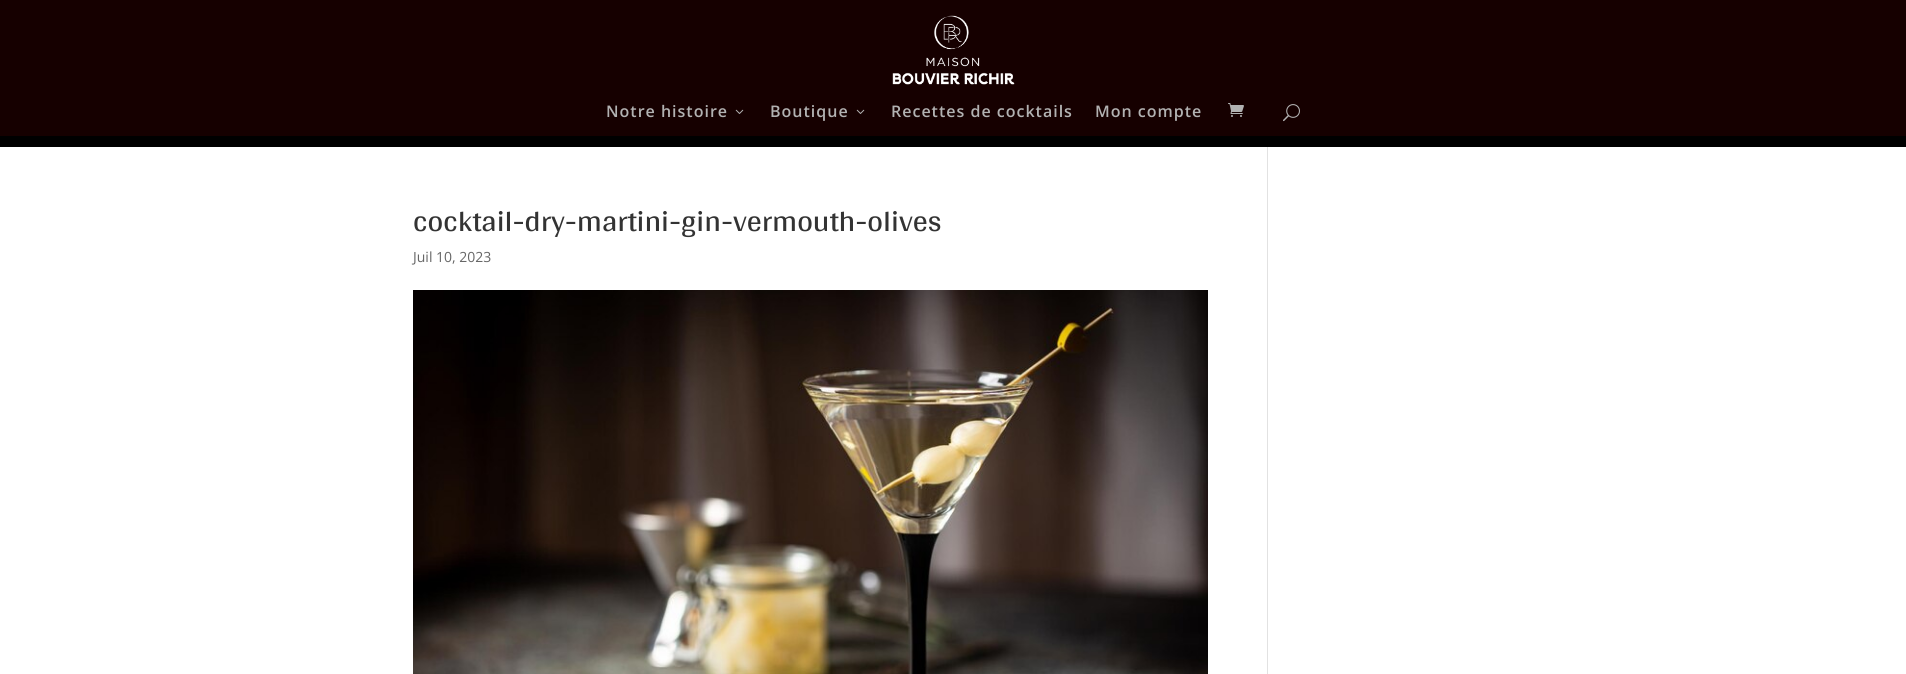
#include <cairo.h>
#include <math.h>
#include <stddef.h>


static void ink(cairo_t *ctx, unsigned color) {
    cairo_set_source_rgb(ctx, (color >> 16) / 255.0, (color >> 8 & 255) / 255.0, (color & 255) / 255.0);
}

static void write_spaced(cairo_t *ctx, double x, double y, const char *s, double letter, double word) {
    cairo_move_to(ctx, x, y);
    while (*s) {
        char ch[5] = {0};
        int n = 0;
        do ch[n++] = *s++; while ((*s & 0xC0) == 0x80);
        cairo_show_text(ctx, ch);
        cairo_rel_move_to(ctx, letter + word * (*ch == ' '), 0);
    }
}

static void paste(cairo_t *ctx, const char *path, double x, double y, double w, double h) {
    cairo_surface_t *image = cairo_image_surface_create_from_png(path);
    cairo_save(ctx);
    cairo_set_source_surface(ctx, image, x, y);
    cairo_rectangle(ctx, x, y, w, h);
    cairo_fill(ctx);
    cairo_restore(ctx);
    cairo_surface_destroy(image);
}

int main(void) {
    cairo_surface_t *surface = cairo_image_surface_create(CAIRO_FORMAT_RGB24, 1906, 674);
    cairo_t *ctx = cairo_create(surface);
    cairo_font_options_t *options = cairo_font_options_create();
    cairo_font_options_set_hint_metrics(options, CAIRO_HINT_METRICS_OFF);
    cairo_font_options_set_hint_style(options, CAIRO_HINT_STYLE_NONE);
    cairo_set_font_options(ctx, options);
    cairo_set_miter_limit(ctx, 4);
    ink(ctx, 0x000000);
    cairo_paint(ctx);
    ink(ctx, 0x160000);
    cairo_rectangle(ctx, 0, 0, 1906, 136);
    cairo_fill(ctx);
    paste(ctx, "media/1.png", 892, 15, 123, 70);
    cairo_select_font_face(ctx, "Open Sans SemiBold", CAIRO_FONT_SLANT_NORMAL, CAIRO_FONT_WEIGHT_NORMAL);
    cairo_set_font_size(ctx, 16);
    ink(ctx, 0xB2B2B2);
    write_spaced(ctx, 606, 117, "Notre histoire", 1, 0);
    paste(ctx, "media/2.png", 735, 109, 9, 5);
    write_spaced(ctx, 770, 117, "Boutique", 1, 0);
    paste(ctx, "media/2.png", 856, 109, 9, 5);
    write_spaced(ctx, 891, 117, "Recettes de cocktails", 1, 0);
    write_spaced(ctx, 1095, 117, "Mon compte", 1, 0);
    paste(ctx, "media/3.png", 1228, 103, 16, 14);
    paste(ctx, "media/4.png", 1283, 104, 17, 18);
    ink(ctx, 0xFFFFFF);
    cairo_rectangle(ctx, 0, 147, 1906, 527);
    cairo_fill(ctx);
    cairo_select_font_face(ctx, "Arya", CAIRO_FONT_SLANT_NORMAL, CAIRO_FONT_WEIGHT_NORMAL);
    cairo_set_font_size(ctx, 30);
    ink(ctx, 0x333333);
    cairo_move_to(ctx, 413, 231);
    cairo_show_text(ctx, "cocktail-dry-martini-gin-vermouth-olives");
    cairo_select_font_face(ctx, "Open Sans", CAIRO_FONT_SLANT_NORMAL, CAIRO_FONT_WEIGHT_NORMAL);
    cairo_set_font_size(ctx, 14);
    ink(ctx, 0x666666);
    cairo_move_to(ctx, 413, 262);
    cairo_show_text(ctx, "Juil 10, 2023");
    paste(ctx, "media/5.png", 413, 290, 795, 384);
    ink(ctx, 0xE2E2E2);
    cairo_rectangle(ctx, 1267, 147, 1, 527);
    cairo_fill(ctx);
    cairo_surface_write_to_png(surface, "image.png");
    cairo_font_options_destroy(options);
    cairo_destroy(ctx);
    cairo_surface_destroy(surface);
    return 0;
}
